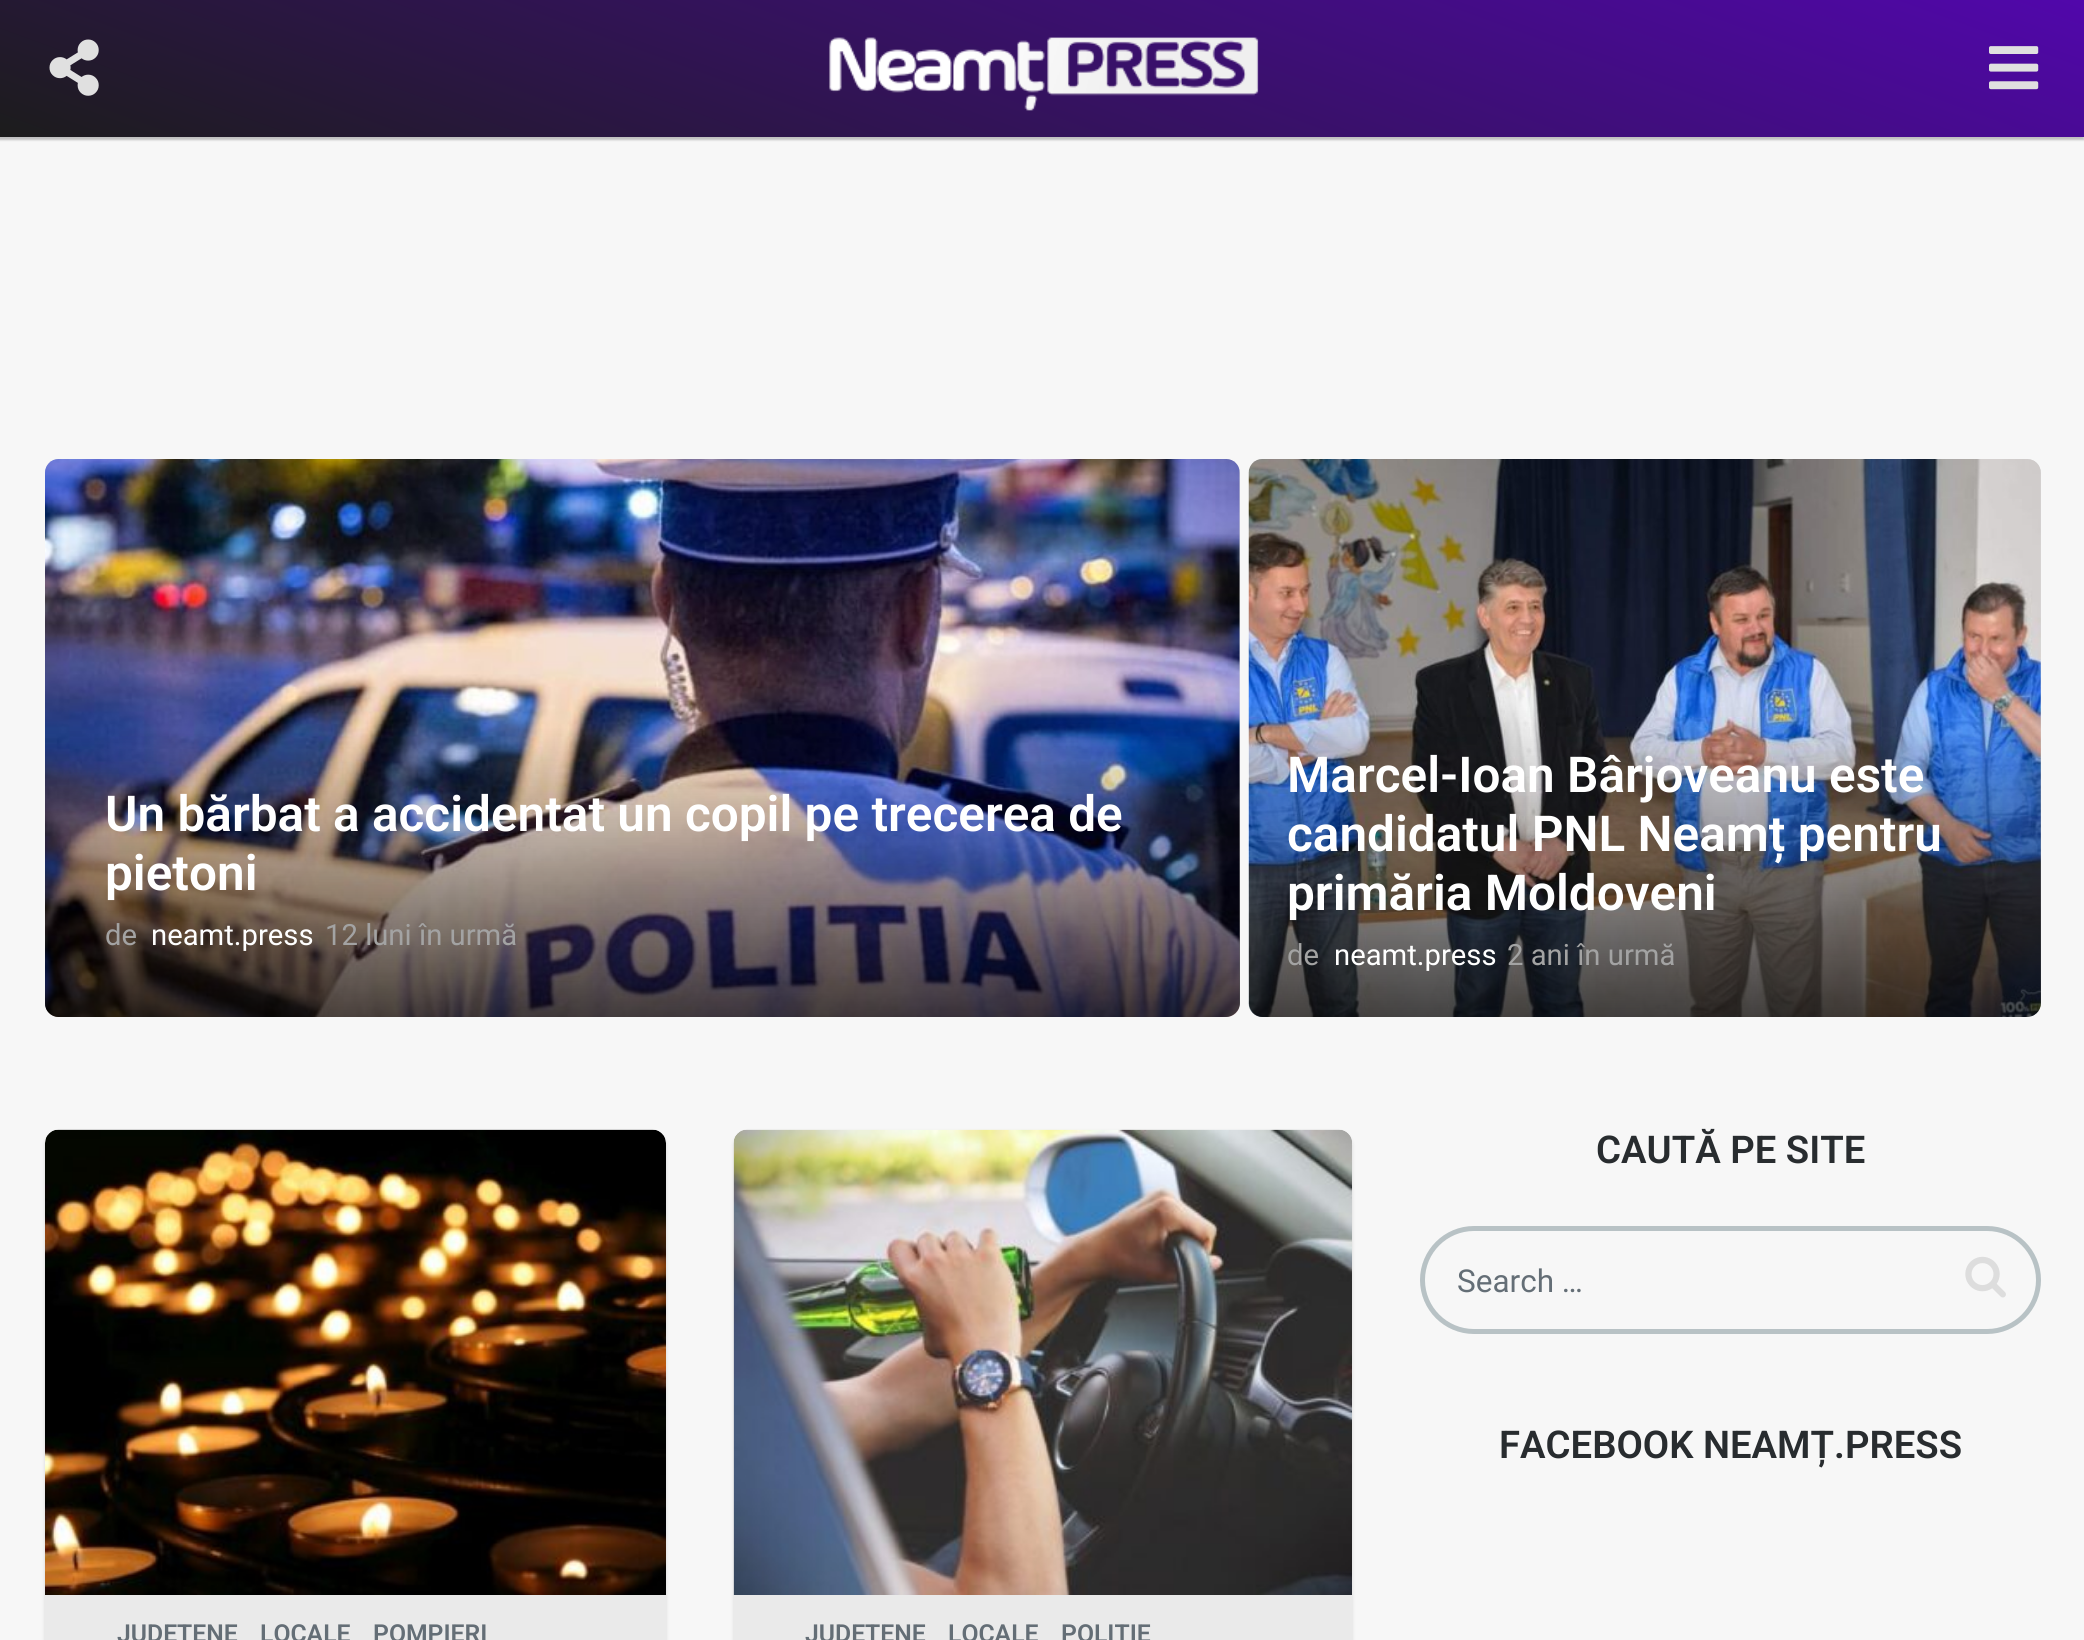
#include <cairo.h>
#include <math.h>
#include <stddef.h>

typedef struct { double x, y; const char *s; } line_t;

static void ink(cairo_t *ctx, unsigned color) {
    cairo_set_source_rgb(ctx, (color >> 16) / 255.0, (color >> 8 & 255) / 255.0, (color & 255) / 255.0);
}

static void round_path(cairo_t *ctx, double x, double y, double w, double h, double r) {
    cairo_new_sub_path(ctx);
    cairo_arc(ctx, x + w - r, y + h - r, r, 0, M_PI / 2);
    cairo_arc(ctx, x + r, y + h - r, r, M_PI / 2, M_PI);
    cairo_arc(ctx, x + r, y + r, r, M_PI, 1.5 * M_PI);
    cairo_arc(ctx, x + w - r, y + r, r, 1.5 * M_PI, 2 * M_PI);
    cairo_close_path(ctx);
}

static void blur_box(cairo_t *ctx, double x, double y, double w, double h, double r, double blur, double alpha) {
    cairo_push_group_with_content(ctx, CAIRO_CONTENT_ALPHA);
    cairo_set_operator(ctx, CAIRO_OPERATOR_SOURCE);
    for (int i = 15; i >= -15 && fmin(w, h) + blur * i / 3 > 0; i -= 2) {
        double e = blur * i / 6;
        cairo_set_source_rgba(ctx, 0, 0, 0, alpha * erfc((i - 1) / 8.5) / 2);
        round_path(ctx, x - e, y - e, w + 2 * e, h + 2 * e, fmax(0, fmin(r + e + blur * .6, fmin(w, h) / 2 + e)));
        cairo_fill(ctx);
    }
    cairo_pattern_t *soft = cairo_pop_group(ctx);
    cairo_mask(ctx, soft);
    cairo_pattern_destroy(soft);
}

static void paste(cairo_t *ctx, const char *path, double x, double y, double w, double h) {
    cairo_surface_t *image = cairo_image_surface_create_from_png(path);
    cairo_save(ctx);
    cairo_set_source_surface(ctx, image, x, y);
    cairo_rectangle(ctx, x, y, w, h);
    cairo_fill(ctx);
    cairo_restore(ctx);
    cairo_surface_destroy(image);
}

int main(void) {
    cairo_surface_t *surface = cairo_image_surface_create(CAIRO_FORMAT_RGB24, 2084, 1640);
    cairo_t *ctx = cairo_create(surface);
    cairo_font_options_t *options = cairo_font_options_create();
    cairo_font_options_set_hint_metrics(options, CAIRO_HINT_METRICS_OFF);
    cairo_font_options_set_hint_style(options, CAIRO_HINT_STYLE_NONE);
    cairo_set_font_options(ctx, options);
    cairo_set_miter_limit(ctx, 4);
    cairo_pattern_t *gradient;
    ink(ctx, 0xF7F7F7);
    cairo_paint(ctx);
    ink(ctx, 0x2A2A2A);
    blur_box(ctx, -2, 2, 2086, 138, 0, 1, 0.27);
    gradient = cairo_pattern_create_linear(899, 464, 1187, -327);
    cairo_pattern_add_color_stop_rgba(gradient, 0, 0.11, 0.11, 0.11, 1);
    cairo_pattern_add_color_stop_rgba(gradient, 1, 0.318, 0.027, 0.671, 1);
    cairo_set_source(ctx, gradient);
    cairo_pattern_destroy(gradient);
    cairo_rectangle(ctx, 0, 0, 2084, 137);
    cairo_fill(ctx);
    paste(ctx, "media/1.png", 49, 39, 50, 57);
    paste(ctx, "media/2.png", 829, 37, 430, 74);
    paste(ctx, "media/3.png", 1989, 46, 50, 44);
    ink(ctx, 0xDDDDDD);
    round_path(ctx, 45, 459, 1195, 558, 14);
    cairo_fill(ctx);
    paste(ctx, "media/4.png", 45, 459, 1195, 558);
    gradient = cairo_pattern_create_linear(642, 727, 642, 1017);
    cairo_pattern_add_color_stop_rgba(gradient, 0, 0, 0, 0, 0);
    cairo_pattern_add_color_stop_rgba(gradient, 1, 0, 0, 0, 0.7);
    cairo_set_source(ctx, gradient);
    cairo_pattern_destroy(gradient);
    cairo_new_path(ctx);
    cairo_move_to(ctx, 45, 727);
    cairo_line_to(ctx, 1240, 727);
    cairo_line_to(ctx, 1240, 1003);
    cairo_curve_to(ctx, 1240, 1010.5, 1233.5, 1017, 1226, 1017);
    cairo_line_to(ctx, 59, 1017);
    cairo_curve_to(ctx, 51.5, 1017, 45, 1010.5, 45, 1003);
    cairo_close_path(ctx);
    cairo_fill(ctx);
    cairo_select_font_face(ctx, "Roboto SemiBold", CAIRO_FONT_SLANT_NORMAL, CAIRO_FONT_WEIGHT_NORMAL);
    cairo_set_font_size(ctx, 49.5);
    ink(ctx, 0xFFFFFF);
    cairo_move_to(ctx, 105, 831);
    cairo_show_text(ctx, "Un bărbat a accidentat un copil pe trecerea de");
    cairo_move_to(ctx, 105, 890);
    cairo_show_text(ctx, "pietoni");
    cairo_select_font_face(ctx, "Roboto", CAIRO_FONT_SLANT_NORMAL, CAIRO_FONT_WEIGHT_NORMAL);
    cairo_set_font_size(ctx, 29.25);
    ink(ctx, 0xA3A3A3);
    cairo_move_to(ctx, 105, 945);
    cairo_show_text(ctx, "de");
    ink(ctx, 0xFFFFFF);
    cairo_move_to(ctx, 151, 945);
    cairo_show_text(ctx, "neamt.press");
    ink(ctx, 0xA3A3A3);
    cairo_move_to(ctx, 325, 945);
    cairo_show_text(ctx, "12 luni în urmă");
    ink(ctx, 0xDDDDDD);
    round_path(ctx, 1249, 459, 792, 558, 14);
    cairo_fill(ctx);
    paste(ctx, "media/5.png", 1248, 459, 793, 558);
    gradient = cairo_pattern_create_linear(1645, 707, 1645, 1017);
    cairo_pattern_add_color_stop_rgba(gradient, 0, 0, 0, 0, 0);
    cairo_pattern_add_color_stop_rgba(gradient, 1, 0, 0, 0, 0.7);
    cairo_set_source(ctx, gradient);
    cairo_pattern_destroy(gradient);
    cairo_new_path(ctx);
    cairo_move_to(ctx, 1249, 707);
    cairo_line_to(ctx, 2041, 707);
    cairo_line_to(ctx, 2041, 1003);
    cairo_curve_to(ctx, 2041, 1010.5, 2034.5, 1017, 2027, 1017);
    cairo_line_to(ctx, 1263, 1017);
    cairo_curve_to(ctx, 1255.5, 1017, 1249, 1010.5, 1249, 1003);
    cairo_close_path(ctx);
    cairo_fill(ctx);
    cairo_select_font_face(ctx, "Roboto SemiBold", CAIRO_FONT_SLANT_NORMAL, CAIRO_FONT_WEIGHT_NORMAL);
    cairo_set_font_size(ctx, 49.5);
    ink(ctx, 0xFFFFFF);
    {
        static const line_t items[] = {
            {1287, 792, "Marcel-Ioan Bârjoveanu este"},
            {1287, 851, "candidatul PNL Neamț pentru"},
            {1287, 910, "primăria Moldoveni"},
        };
        for (size_t i = 0; i < sizeof items / sizeof *items; i++) {
            cairo_move_to(ctx, items[i].x, items[i].y);
            cairo_show_text(ctx, items[i].s);
        }
    }
    cairo_select_font_face(ctx, "Roboto", CAIRO_FONT_SLANT_NORMAL, CAIRO_FONT_WEIGHT_NORMAL);
    cairo_set_font_size(ctx, 29.25);
    ink(ctx, 0xA3A3A3);
    cairo_move_to(ctx, 1287, 965);
    cairo_show_text(ctx, "de");
    ink(ctx, 0xFFFFFF);
    cairo_move_to(ctx, 1334, 965);
    cairo_show_text(ctx, "neamt.press");
    ink(ctx, 0xA3A3A3);
    cairo_move_to(ctx, 1507, 965);
    cairo_show_text(ctx, "2 ani în urmă");
    cairo_select_font_face(ctx, "Roboto SemiBold", CAIRO_FONT_SLANT_NORMAL, CAIRO_FONT_WEIGHT_NORMAL);
    cairo_set_font_size(ctx, 38.25);
    ink(ctx, 0x282C2F);
    cairo_move_to(ctx, 1596, 1163);
    cairo_show_text(ctx, "CAUTĂ PE SITE");
    round_path(ctx, 1422.5, 1228.5, 616, 103, 51.5);
    ink(ctx, 0xB8C2C5);
    cairo_set_line_width(ctx, 5);
    cairo_stroke(ctx);
    cairo_select_font_face(ctx, "Roboto", CAIRO_FONT_SLANT_NORMAL, CAIRO_FONT_WEIGHT_NORMAL);
    cairo_set_font_size(ctx, 31.5);
    ink(ctx, 0x646E76);
    cairo_move_to(ctx, 1457, 1292);
    cairo_show_text(ctx, "Search …");
    paste(ctx, "media/6.png", 1965, 1256, 41, 42);
    cairo_select_font_face(ctx, "Roboto SemiBold", CAIRO_FONT_SLANT_NORMAL, CAIRO_FONT_WEIGHT_NORMAL);
    cairo_set_font_size(ctx, 38.25);
    ink(ctx, 0x282C2F);
    cairo_move_to(ctx, 1499, 1458);
    cairo_show_text(ctx, "FACEBOOK NEAMȚ.PRESS");
    ink(ctx, 0x2A2A2A);
    blur_box(ctx, 45, 1132, 621, 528, 14, 2, 0.15);
    ink(ctx, 0xEAEAEA);
    round_path(ctx, 45, 1130, 621, 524, 14);
    cairo_fill(ctx);
    paste(ctx, "media/7.png", 45, 1129, 621, 466);
    cairo_set_font_size(ctx, 24.75);
    ink(ctx, 0x646E76);
    {
        static const line_t items[] = {
            {117, 1642, "JUDEȚENE"},
            {260, 1642, "LOCALE"},
            {373, 1642, "POMPIERI"},
        };
        for (size_t i = 0; i < sizeof items / sizeof *items; i++) {
            cairo_move_to(ctx, items[i].x, items[i].y);
            cairo_show_text(ctx, items[i].s);
        }
    }
    ink(ctx, 0x2A2A2A);
    blur_box(ctx, 734, 1132, 618, 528, 14, 2, 0.15);
    ink(ctx, 0xEAEAEA);
    round_path(ctx, 734, 1130, 618, 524, 14);
    cairo_fill(ctx);
    paste(ctx, "media/8.png", 733, 1129, 619, 466);
    ink(ctx, 0x646E76);
    {
        static const line_t items[] = {
            {805, 1642, "JUDEȚENE"},
            {948, 1642, "LOCALE"},
            {1061, 1642, "POLIȚIE"},
        };
        for (size_t i = 0; i < sizeof items / sizeof *items; i++) {
            cairo_move_to(ctx, items[i].x, items[i].y);
            cairo_show_text(ctx, items[i].s);
        }
    }
    cairo_surface_write_to_png(surface, "image.png");
    cairo_font_options_destroy(options);
    cairo_destroy(ctx);
    cairo_surface_destroy(surface);
    return 0;
}
